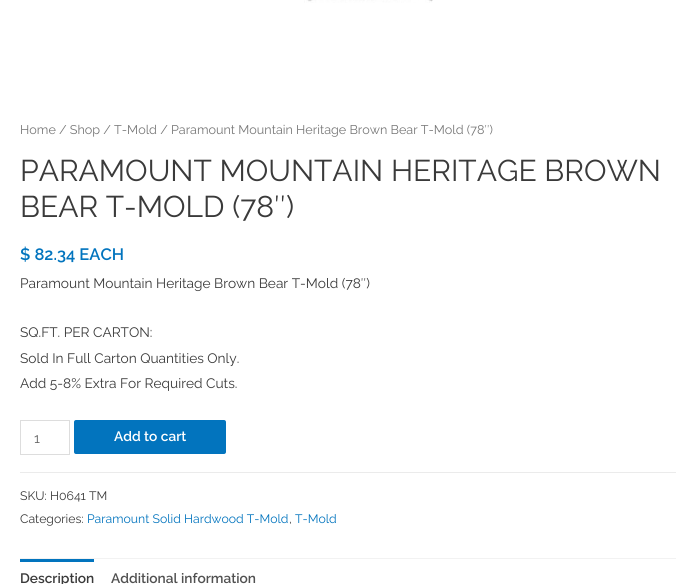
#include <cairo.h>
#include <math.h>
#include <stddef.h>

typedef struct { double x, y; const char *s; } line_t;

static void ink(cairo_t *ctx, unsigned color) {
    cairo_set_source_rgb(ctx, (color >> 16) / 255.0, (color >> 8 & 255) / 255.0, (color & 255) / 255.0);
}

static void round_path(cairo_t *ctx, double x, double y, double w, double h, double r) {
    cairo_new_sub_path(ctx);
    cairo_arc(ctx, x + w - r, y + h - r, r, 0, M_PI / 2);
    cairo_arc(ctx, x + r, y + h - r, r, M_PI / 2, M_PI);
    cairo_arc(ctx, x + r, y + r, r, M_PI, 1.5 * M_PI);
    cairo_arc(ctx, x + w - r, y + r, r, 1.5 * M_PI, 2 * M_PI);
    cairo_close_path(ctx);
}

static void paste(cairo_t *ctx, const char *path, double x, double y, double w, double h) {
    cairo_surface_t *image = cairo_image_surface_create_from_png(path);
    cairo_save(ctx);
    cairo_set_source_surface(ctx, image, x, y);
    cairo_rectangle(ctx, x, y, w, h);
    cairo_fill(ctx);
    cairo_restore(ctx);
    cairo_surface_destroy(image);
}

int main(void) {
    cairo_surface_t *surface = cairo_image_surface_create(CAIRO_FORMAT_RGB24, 696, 584);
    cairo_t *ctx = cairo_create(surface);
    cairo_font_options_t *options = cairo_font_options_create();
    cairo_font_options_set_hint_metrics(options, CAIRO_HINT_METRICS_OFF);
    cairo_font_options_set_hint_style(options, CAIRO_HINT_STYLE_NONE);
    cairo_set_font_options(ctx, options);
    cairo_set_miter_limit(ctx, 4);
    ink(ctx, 0xFFFFFF);
    cairo_paint(ctx);
    paste(ctx, "media/1.png", 304, 0, 129, 3);
    cairo_select_font_face(ctx, "Raleway", CAIRO_FONT_SLANT_NORMAL, CAIRO_FONT_WEIGHT_NORMAL);
    cairo_set_font_size(ctx, 12.6);
    ink(ctx, 0x777777);
    cairo_move_to(ctx, 20, 134);
    cairo_show_text(ctx, "Home / Shop / T-Mold / Paramount Mountain Heritage Brown Bear T-Mold (78″)");
    cairo_set_font_size(ctx, 30);
    ink(ctx, 0x3A3A3A);
    cairo_move_to(ctx, 20, 181);
    cairo_show_text(ctx, "PARAMOUNT MOUNTAIN HERITAGE BROWN");
    cairo_move_to(ctx, 20, 217);
    cairo_show_text(ctx, "BEAR T-MOLD (78″)");
    cairo_select_font_face(ctx, "Raleway SemiBold", CAIRO_FONT_SLANT_NORMAL, CAIRO_FONT_WEIGHT_NORMAL);
    cairo_set_font_size(ctx, 16.5);
    ink(ctx, 0x0274BE);
    cairo_move_to(ctx, 20, 260);
    cairo_show_text(ctx, "$ 82.34 EACH");
    cairo_select_font_face(ctx, "Raleway", CAIRO_FONT_SLANT_NORMAL, CAIRO_FONT_WEIGHT_NORMAL);
    cairo_set_font_size(ctx, 13.7);
    ink(ctx, 0x3A3A3A);
    {
        static const line_t items[] = {
            {20, 288, "Paramount Mountain Heritage Brown Bear T-Mold (78″)"},
            {20, 337, "SQ.FT. PER CARTON:"},
            {20, 363, "Sold In Full Carton Quantities Only."},
            {20, 388, "Add 5-8% Extra For Required Cuts."},
        };
        for (size_t i = 0; i < sizeof items / sizeof *items; i++) {
            cairo_move_to(ctx, items[i].x, items[i].y);
            cairo_show_text(ctx, items[i].s);
        }
    }
    cairo_rectangle(ctx, 20.5, 420.5, 49, 34);
    ink(ctx, 0xDDDDDD);
    cairo_set_line_width(ctx, 1);
    cairo_stroke(ctx);
    ink(ctx, 0x666666);
    cairo_move_to(ctx, 34, 443);
    cairo_show_text(ctx, "1");
    ink(ctx, 0x0274BE);
    round_path(ctx, 74, 420, 152, 34, 2);
    cairo_fill(ctx);
    cairo_select_font_face(ctx, "Raleway SemiBold", CAIRO_FONT_SLANT_NORMAL, CAIRO_FONT_WEIGHT_NORMAL);
    ink(ctx, 0xFFFFFF);
    cairo_move_to(ctx, 114, 441);
    cairo_show_text(ctx, "Add to cart");
    ink(ctx, 0xEBEBEB);
    cairo_rectangle(ctx, 20, 472, 656, 1);
    cairo_fill(ctx);
    cairo_select_font_face(ctx, "Raleway", CAIRO_FONT_SLANT_NORMAL, CAIRO_FONT_WEIGHT_NORMAL);
    cairo_set_font_size(ctx, 12.25);
    ink(ctx, 0x3A3A3A);
    cairo_move_to(ctx, 20, 500);
    cairo_show_text(ctx, "SKU: H0641 TM");
    cairo_move_to(ctx, 20, 523);
    cairo_show_text(ctx, "Categories:");
    ink(ctx, 0x0274BE);
    cairo_move_to(ctx, 87, 523);
    cairo_show_text(ctx, "Paramount Solid Hardwood T-Mold");
    ink(ctx, 0x3A3A3A);
    cairo_move_to(ctx, 289, 523);
    cairo_show_text(ctx, ",");
    ink(ctx, 0x0274BE);
    cairo_move_to(ctx, 295, 523);
    cairo_show_text(ctx, "T-Mold");
    ink(ctx, 0xF2F2F2);
    cairo_rectangle(ctx, 20, 558, 656, 1);
    cairo_fill(ctx);
    ink(ctx, 0x0274BE);
    cairo_rectangle(ctx, 20, 559, 74, 3);
    cairo_fill(ctx);
    cairo_select_font_face(ctx, "Raleway SemiBold", CAIRO_FONT_SLANT_NORMAL, CAIRO_FONT_WEIGHT_NORMAL);
    cairo_set_font_size(ctx, 13.7);
    ink(ctx, 0x3A3A3A);
    cairo_move_to(ctx, 20, 583);
    cairo_show_text(ctx, "Description");
    ink(ctx, 0x515151);
    cairo_move_to(ctx, 111, 583);
    cairo_show_text(ctx, "Additional information");
    cairo_surface_write_to_png(surface, "image.png");
    cairo_font_options_destroy(options);
    cairo_destroy(ctx);
    cairo_surface_destroy(surface);
    return 0;
}
